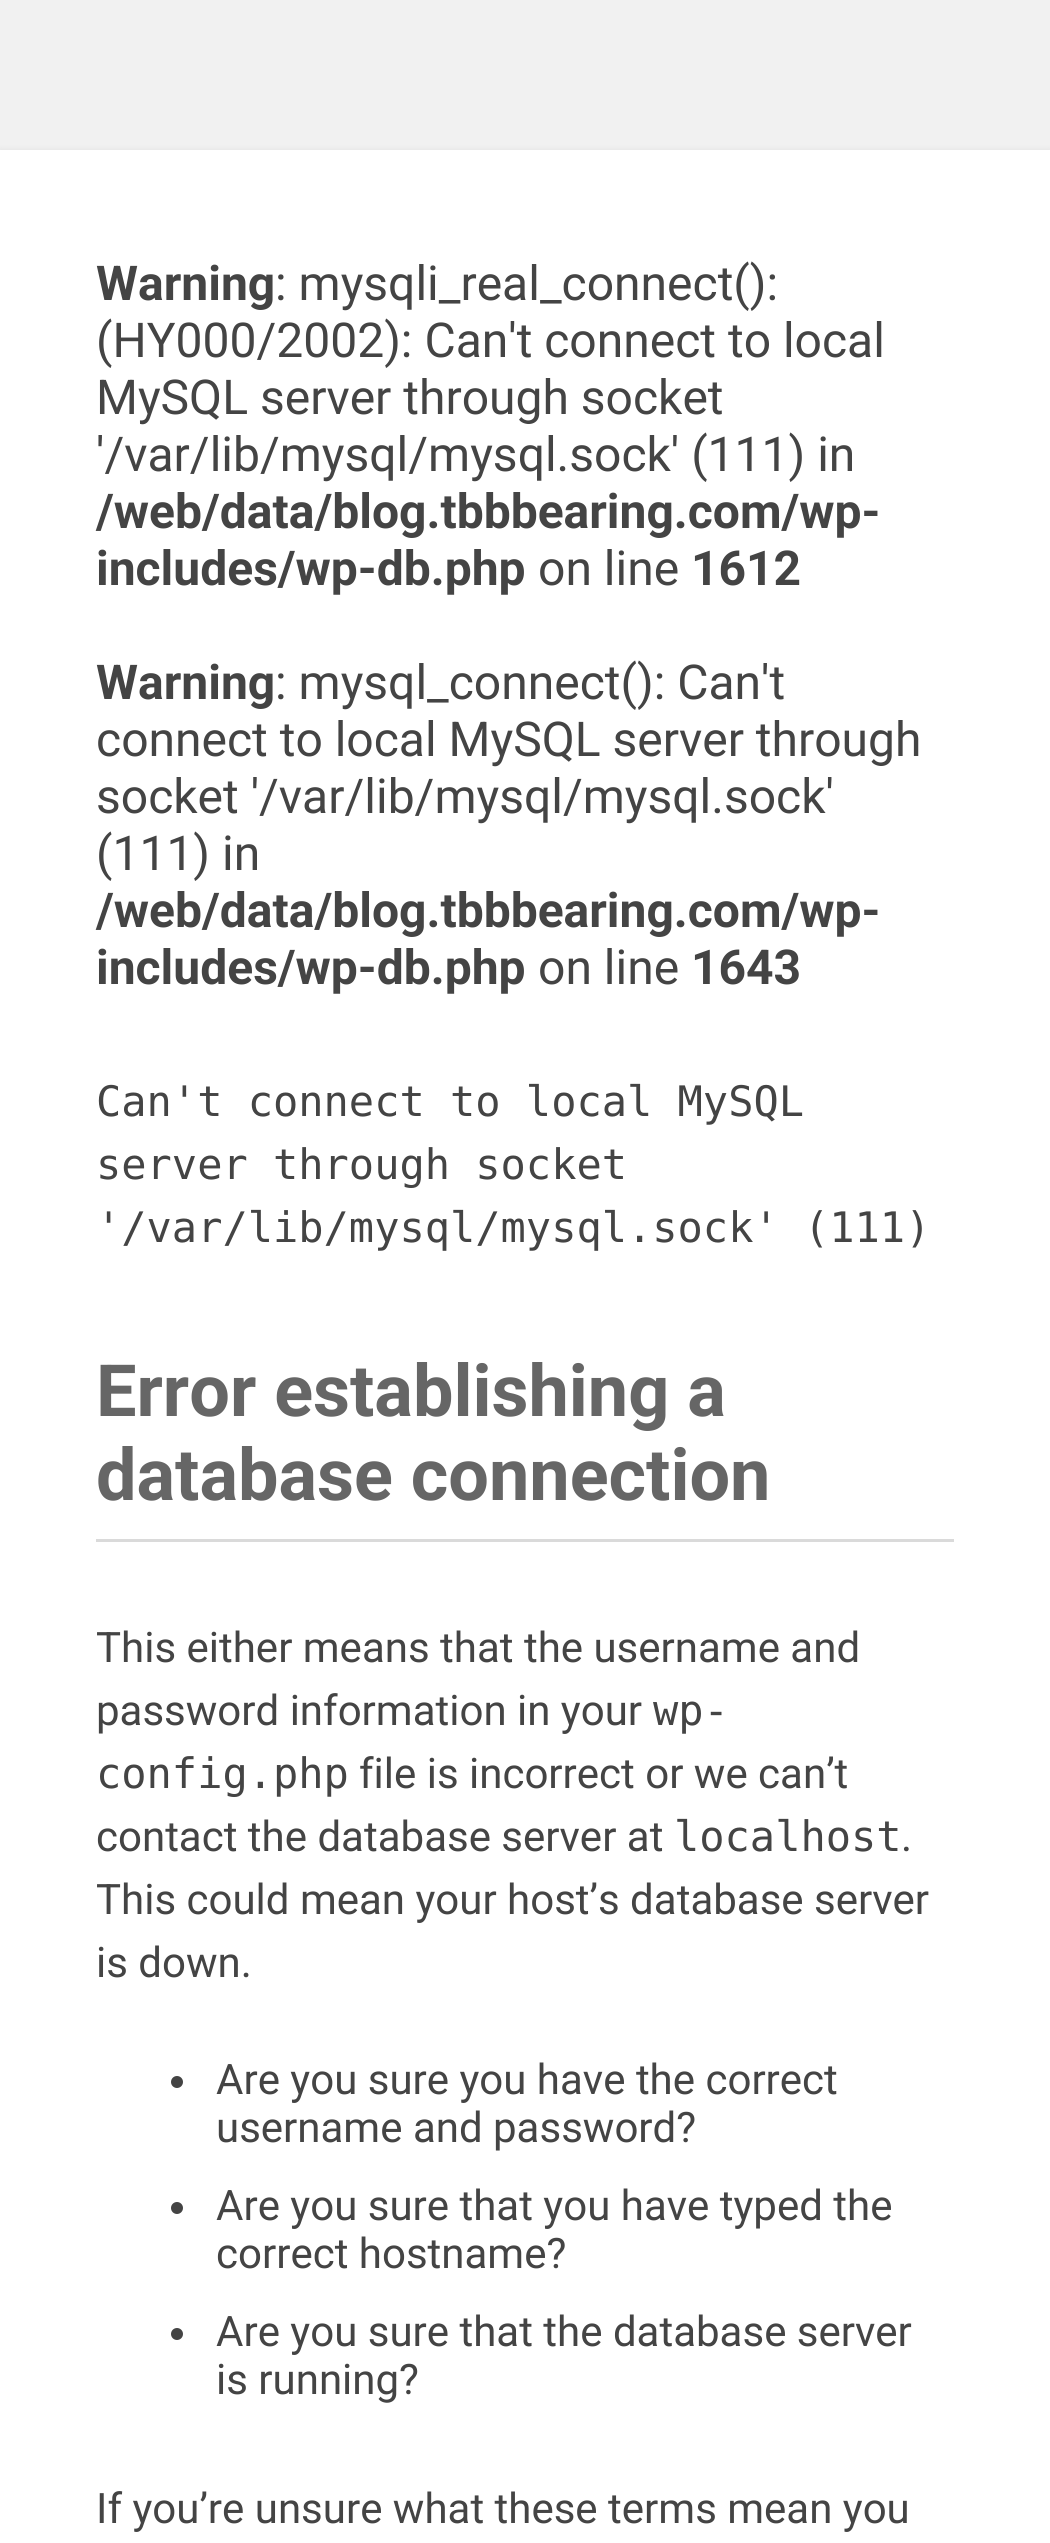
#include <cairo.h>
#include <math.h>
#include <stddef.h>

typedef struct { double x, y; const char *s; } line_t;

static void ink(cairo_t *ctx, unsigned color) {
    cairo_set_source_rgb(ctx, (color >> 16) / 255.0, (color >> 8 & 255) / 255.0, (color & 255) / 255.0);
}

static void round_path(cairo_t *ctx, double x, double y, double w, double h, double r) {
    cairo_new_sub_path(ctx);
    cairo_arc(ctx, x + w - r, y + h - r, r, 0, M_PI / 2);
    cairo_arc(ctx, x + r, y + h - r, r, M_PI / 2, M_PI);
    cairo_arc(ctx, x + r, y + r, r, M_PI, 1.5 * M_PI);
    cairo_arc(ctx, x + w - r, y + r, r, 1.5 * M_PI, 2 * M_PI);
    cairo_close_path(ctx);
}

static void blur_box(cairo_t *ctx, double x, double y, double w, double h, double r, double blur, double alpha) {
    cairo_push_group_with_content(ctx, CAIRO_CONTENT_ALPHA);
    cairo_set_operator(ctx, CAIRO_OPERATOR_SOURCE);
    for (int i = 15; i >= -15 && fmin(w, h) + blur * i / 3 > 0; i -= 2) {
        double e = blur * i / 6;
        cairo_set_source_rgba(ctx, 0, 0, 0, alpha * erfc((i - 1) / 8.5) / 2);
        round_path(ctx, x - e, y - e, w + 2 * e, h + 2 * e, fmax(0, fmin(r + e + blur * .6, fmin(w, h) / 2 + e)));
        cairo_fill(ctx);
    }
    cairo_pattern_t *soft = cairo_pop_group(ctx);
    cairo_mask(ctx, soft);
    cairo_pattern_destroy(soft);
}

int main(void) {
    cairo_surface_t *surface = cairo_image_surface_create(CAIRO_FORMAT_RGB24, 1050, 2543);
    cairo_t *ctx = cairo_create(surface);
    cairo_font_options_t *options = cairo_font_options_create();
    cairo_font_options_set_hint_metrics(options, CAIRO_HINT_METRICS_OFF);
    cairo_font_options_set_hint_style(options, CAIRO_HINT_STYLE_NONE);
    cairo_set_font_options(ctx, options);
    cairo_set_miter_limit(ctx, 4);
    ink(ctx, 0xF1F1F1);
    cairo_paint(ctx);
    ink(ctx, 0x000000);
    blur_box(ctx, 0, 153, 1050, 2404, 0, 4.5, 0.13);
    ink(ctx, 0xFFFFFF);
    cairo_rectangle(ctx, 0, 150, 1050, 2393);
    cairo_fill(ctx);
    cairo_select_font_face(ctx, "Roboto", CAIRO_FONT_SLANT_NORMAL, CAIRO_FONT_WEIGHT_BOLD);
    cairo_set_font_size(ctx, 48);
    ink(ctx, 0x444444);
    cairo_move_to(ctx, 96, 300);
    cairo_show_text(ctx, "Warning");
    cairo_select_font_face(ctx, "Roboto", CAIRO_FONT_SLANT_NORMAL, CAIRO_FONT_WEIGHT_NORMAL);
    {
        static const line_t items[] = {
            {275, 300, ": mysqli_real_connect():"},
            {96, 357, "(HY000/2002): Can't connect to local"},
            {96, 414, "MySQL server through socket"},
            {96, 471, "'/var/lib/mysql/mysql.sock' (111) in"},
        };
        for (size_t i = 0; i < sizeof items / sizeof *items; i++) {
            cairo_move_to(ctx, items[i].x, items[i].y);
            cairo_show_text(ctx, items[i].s);
        }
    }
    cairo_select_font_face(ctx, "Roboto", CAIRO_FONT_SLANT_NORMAL, CAIRO_FONT_WEIGHT_BOLD);
    cairo_move_to(ctx, 96, 528);
    cairo_show_text(ctx, "/web/data/blog.tbbbearing.com/wp-");
    cairo_move_to(ctx, 96, 585);
    cairo_show_text(ctx, "includes/wp-db.php");
    cairo_select_font_face(ctx, "Roboto", CAIRO_FONT_SLANT_NORMAL, CAIRO_FONT_WEIGHT_NORMAL);
    cairo_move_to(ctx, 538, 585);
    cairo_show_text(ctx, "on line");
    cairo_select_font_face(ctx, "Roboto", CAIRO_FONT_SLANT_NORMAL, CAIRO_FONT_WEIGHT_BOLD);
    cairo_move_to(ctx, 691, 585);
    cairo_show_text(ctx, "1612");
    cairo_move_to(ctx, 96, 699);
    cairo_show_text(ctx, "Warning");
    cairo_select_font_face(ctx, "Roboto", CAIRO_FONT_SLANT_NORMAL, CAIRO_FONT_WEIGHT_NORMAL);
    {
        static const line_t items[] = {
            {275, 699, ": mysql_connect(): Can't"},
            {96, 756, "connect to local MySQL server through"},
            {96, 813, "socket '/var/lib/mysql/mysql.sock'"},
            {96, 870, "(111) in"},
        };
        for (size_t i = 0; i < sizeof items / sizeof *items; i++) {
            cairo_move_to(ctx, items[i].x, items[i].y);
            cairo_show_text(ctx, items[i].s);
        }
    }
    cairo_select_font_face(ctx, "Roboto", CAIRO_FONT_SLANT_NORMAL, CAIRO_FONT_WEIGHT_BOLD);
    cairo_move_to(ctx, 96, 927);
    cairo_show_text(ctx, "/web/data/blog.tbbbearing.com/wp-");
    cairo_move_to(ctx, 96, 984);
    cairo_show_text(ctx, "includes/wp-db.php");
    cairo_select_font_face(ctx, "Roboto", CAIRO_FONT_SLANT_NORMAL, CAIRO_FONT_WEIGHT_NORMAL);
    cairo_move_to(ctx, 538, 984);
    cairo_show_text(ctx, "on line");
    cairo_select_font_face(ctx, "Roboto", CAIRO_FONT_SLANT_NORMAL, CAIRO_FONT_WEIGHT_BOLD);
    cairo_move_to(ctx, 691, 984);
    cairo_show_text(ctx, "1643");
    cairo_select_font_face(ctx, "DejaVu Sans Mono", CAIRO_FONT_SLANT_NORMAL, CAIRO_FONT_WEIGHT_NORMAL);
    cairo_set_font_size(ctx, 42);
    {
        static const line_t items[] = {
            {96, 1116, "Can't connect to local MySQL"},
            {96, 1179, "server through socket"},
            {96, 1242, "'/var/lib/mysql/mysql.sock' (111)"},
        };
        for (size_t i = 0; i < sizeof items / sizeof *items; i++) {
            cairo_move_to(ctx, items[i].x, items[i].y);
            cairo_show_text(ctx, items[i].s);
        }
    }
    ink(ctx, 0xDADADA);
    cairo_rectangle(ctx, 96, 1539, 858, 3);
    cairo_fill(ctx);
    cairo_select_font_face(ctx, "Roboto", CAIRO_FONT_SLANT_NORMAL, CAIRO_FONT_WEIGHT_BOLD);
    cairo_set_font_size(ctx, 72);
    ink(ctx, 0x666666);
    cairo_move_to(ctx, 96, 1416);
    cairo_show_text(ctx, "Error establishing a");
    cairo_move_to(ctx, 96, 1500);
    cairo_show_text(ctx, "database connection");
    cairo_select_font_face(ctx, "Roboto", CAIRO_FONT_SLANT_NORMAL, CAIRO_FONT_WEIGHT_NORMAL);
    cairo_set_font_size(ctx, 42);
    ink(ctx, 0x444444);
    cairo_move_to(ctx, 96, 1662);
    cairo_show_text(ctx, "This either means that the username and");
    cairo_move_to(ctx, 96, 1725);
    cairo_show_text(ctx, "password information in your");
    cairo_select_font_face(ctx, "DejaVu Sans Mono", CAIRO_FONT_SLANT_NORMAL, CAIRO_FONT_WEIGHT_NORMAL);
    cairo_move_to(ctx, 653, 1725);
    cairo_show_text(ctx, "wp-");
    cairo_move_to(ctx, 96, 1788);
    cairo_show_text(ctx, "config.php");
    cairo_select_font_face(ctx, "Roboto", CAIRO_FONT_SLANT_NORMAL, CAIRO_FONT_WEIGHT_NORMAL);
    cairo_move_to(ctx, 359, 1788);
    cairo_show_text(ctx, "file is incorrect or we can’t");
    cairo_move_to(ctx, 96, 1851);
    cairo_show_text(ctx, "contact the database server at");
    cairo_select_font_face(ctx, "DejaVu Sans Mono", CAIRO_FONT_SLANT_NORMAL, CAIRO_FONT_WEIGHT_NORMAL);
    cairo_move_to(ctx, 674, 1851);
    cairo_show_text(ctx, "localhost");
    cairo_select_font_face(ctx, "Roboto", CAIRO_FONT_SLANT_NORMAL, CAIRO_FONT_WEIGHT_NORMAL);
    {
        static const line_t items[] = {
            {901, 1851, "."},
            {96, 1914, "This could mean your host’s database server"},
            {96, 1977, "is down."},
        };
        for (size_t i = 0; i < sizeof items / sizeof *items; i++) {
            cairo_move_to(ctx, items[i].x, items[i].y);
            cairo_show_text(ctx, items[i].s);
        }
    }
    cairo_new_path(ctx);
    cairo_arc(ctx, 177, 2082, 6, 0, 2 * M_PI);
    cairo_fill(ctx);
    cairo_move_to(ctx, 216, 2094);
    cairo_show_text(ctx, "Are you sure you have the correct");
    cairo_move_to(ctx, 216, 2142);
    cairo_show_text(ctx, "username and password?");
    cairo_new_path(ctx);
    cairo_arc(ctx, 177, 2208, 6, 0, 2 * M_PI);
    cairo_fill(ctx);
    cairo_move_to(ctx, 216, 2220);
    cairo_show_text(ctx, "Are you sure that you have typed the");
    cairo_move_to(ctx, 216, 2268);
    cairo_show_text(ctx, "correct hostname?");
    cairo_new_path(ctx);
    cairo_arc(ctx, 177, 2334, 6, 0, 2 * M_PI);
    cairo_fill(ctx);
    {
        static const line_t items[] = {
            {216, 2346, "Are you sure that the database server"},
            {216, 2394, "is running?"},
            {96, 2523, "If you’re unsure what these terms mean you"},
        };
        for (size_t i = 0; i < sizeof items / sizeof *items; i++) {
            cairo_move_to(ctx, items[i].x, items[i].y);
            cairo_show_text(ctx, items[i].s);
        }
    }
    cairo_surface_write_to_png(surface, "image.png");
    cairo_font_options_destroy(options);
    cairo_destroy(ctx);
    cairo_surface_destroy(surface);
    return 0;
}
